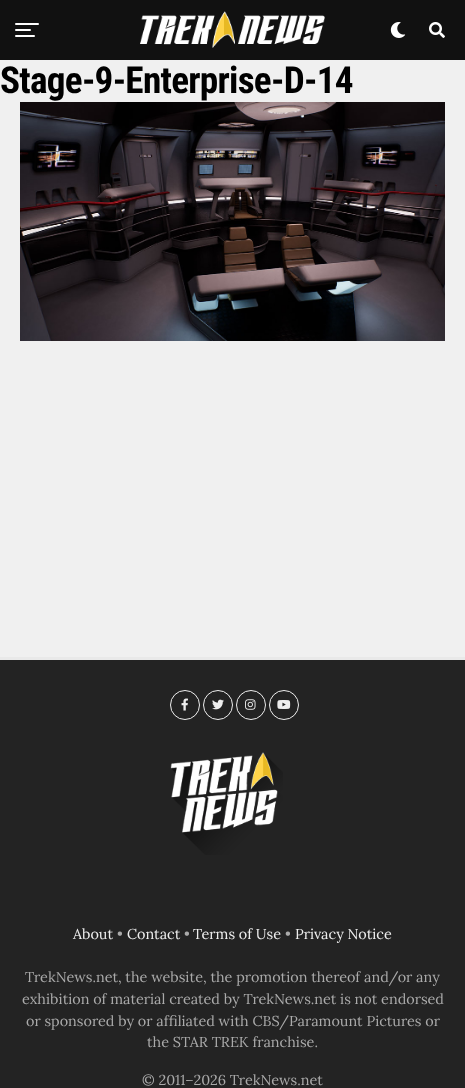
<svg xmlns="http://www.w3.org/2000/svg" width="465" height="1088">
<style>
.a{font:bold 37.25px Roboto Condensed;letter-spacing:-0.75px;fill:#000}
.b{font:14.4px Lora;fill:#eee}
.c{font:14.4px Lora;fill:#aaa}
</style>
<rect width="100%" height="100%" fill="#f0f0f0"/>
<path fill="#111" d="M0 0h465v60H0z"/>
<rect fill="#fff" x="15" y="23" width="24" height="2" rx="1"/>
<rect fill="#fff" x="15" y="29" width="16" height="2" rx="1"/>
<rect fill="#fff" x="15" y="35" width="20" height="2" rx="1"/>
<image href="1.png" x="140" y="11" width="185" height="37"/>
<image href="2.png" x="390" y="22" width="16" height="16"/>
<image href="3.png" x="429" y="22" width="16" height="16"/>
<image href="4.png" x="20" y="102" width="425" height="239"/>
<path fill="#232323" d="M0 660h465v428H0z"/>
<path fill="#e9e9e9" d="M0 657h465v3H0z"/>
<circle fill="none" stroke="#eee" cx="185" cy="705" r="14.5"/>
<image href="5.png" x="181" y="698" width="7" height="13"/>
<circle fill="none" stroke="#eee" cx="218" cy="705" r="14.5"/>
<image href="6.png" x="212" y="699" width="12" height="11"/>
<circle fill="none" stroke="#eee" cx="251" cy="705" r="14.5"/>
<image href="7.png" x="245" y="699" width="11" height="11"/>
<circle fill="none" stroke="#eee" cx="284" cy="705" r="14.5"/>
<image href="8.png" x="277" y="700" width="14" height="9"/>
<image href="9.png" x="170" y="752" width="113" height="103"/>
<text class="a" x="0" y="93">Stage-9-Enterprise-D-14</text>
<text class="b" x="73" y="939">About</text>
<text class="c" x="117" y="939">•</text>
<text class="b" x="127" y="939">Contact</text>
<text class="c" x="184" y="939">•</text>
<text class="b" x="193" y="939">Terms of Use</text>
<text class="c" x="285" y="939">•</text>
<text class="b" x="295" y="939">Privacy Notice</text>
<text class="c" x="25" y="982">TrekNews.net, the website, the promotion thereof and/or any</text>
<text class="c" x="22" y="1004">exhibition of material created by TrekNews.net is not endorsed</text>
<text class="c" x="26" y="1026">or sponsored by or affiliated with CBS/Paramount Pictures or</text>
<text class="c" x="147" y="1047">the STAR TREK franchise.</text>
<text class="c" x="142" y="1085">© 2011–2026 TrekNews.net</text>
</svg>
